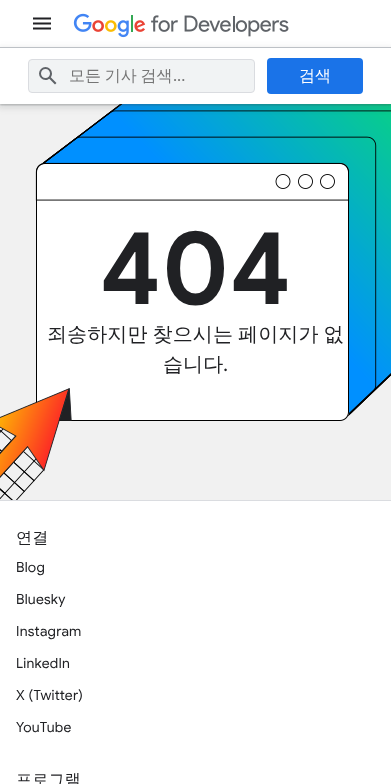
<svg xmlns="http://www.w3.org/2000/svg" width="391" height="784">
<style>
.a{font:500 16px WenQuanYi Zen Hei;fill:#757575}
.b{font:16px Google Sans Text;fill:#757575}
.c{font:500 16px WenQuanYi Zen Hei;fill:#fff}
.d{font:bold 100px Google Sans Text;letter-spacing:0.1px;fill:#202124}
.e{font:500 20px WenQuanYi Zen Hei;letter-spacing:0.1px;fill:#202124}
.f{font:20px Google Sans Text;letter-spacing:0.1px;fill:#202124}
.g{font:500 16px WenQuanYi Zen Hei;letter-spacing:0.25px;fill:#202124}
.h{font:14px Google Sans;letter-spacing:0.25px;fill:#202124}
</style>
<defs>
<clipPath id="clip1"><path d="M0 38h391v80h-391zm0 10h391v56h-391z" clip-rule="evenodd"/></clipPath>
<clipPath id="clip2"><path d="M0 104h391v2H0z"/></clipPath>
</defs>
<rect width="100%" height="100%" fill="#fff"/>
<image href="4.png" x="0" y="104" width="391" height="396"/>
<g clip-path="url(#clip1)">
<path fill="#3c404326" filter="blur(3px)" d="M-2 48h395v60H-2z"/>
</g>
<g clip-path="url(#clip2)">
<path fill="#3c40434d" filter="blur(1px)" d="M0 49h391v56H0z"/>
</g>
<path fill="#bdc1c6" d="M0 47h391v1H0z"/>
<image href="1.png" x="33" y="17" width="18" height="13"/>
<image href="2.png" x="73" y="13" width="216" height="25"/>
<rect fill="#f1f3f4" stroke="#dadce0" x="28.5" y="59.5" width="226" height="33" rx="3.5"/>
<image href="3.png" x="39" y="67" width="18" height="18"/>
<rect fill="#1a73e8" x="267" y="58" width="96" height="36" rx="4"/>
<path fill="#dadce0" d="M0 500h391v1H0z"/>
<text class="a" x="69" y="81" word-spacing="-1">모든 기사 검색</text>
<text class="b" x="173" y="81">...</text>
<text class="c" x="299" y="81">검색</text>
<text class="d" x="99" y="304">404</text>
<text class="e" x="47" y="341" word-spacing="-1">죄송하지만 찾으시는 페이지가 없</text>
<text class="e" x="163" y="371">습니다</text>
<text class="f" x="223" y="371">.</text>
<text class="g" x="16" y="543">연결</text>
<text class="h" x="16" y="572">Blog</text>
<text class="h" x="16" y="604">Bluesky</text>
<text class="h" x="16" y="636">Instagram</text>
<text class="h" x="16" y="668">LinkedIn</text>
<text class="h" x="16" y="700">X (Twitter)</text>
<text class="h" x="16" y="732">YouTube</text>
<text class="g" x="16" y="785">프로그램</text>
</svg>
